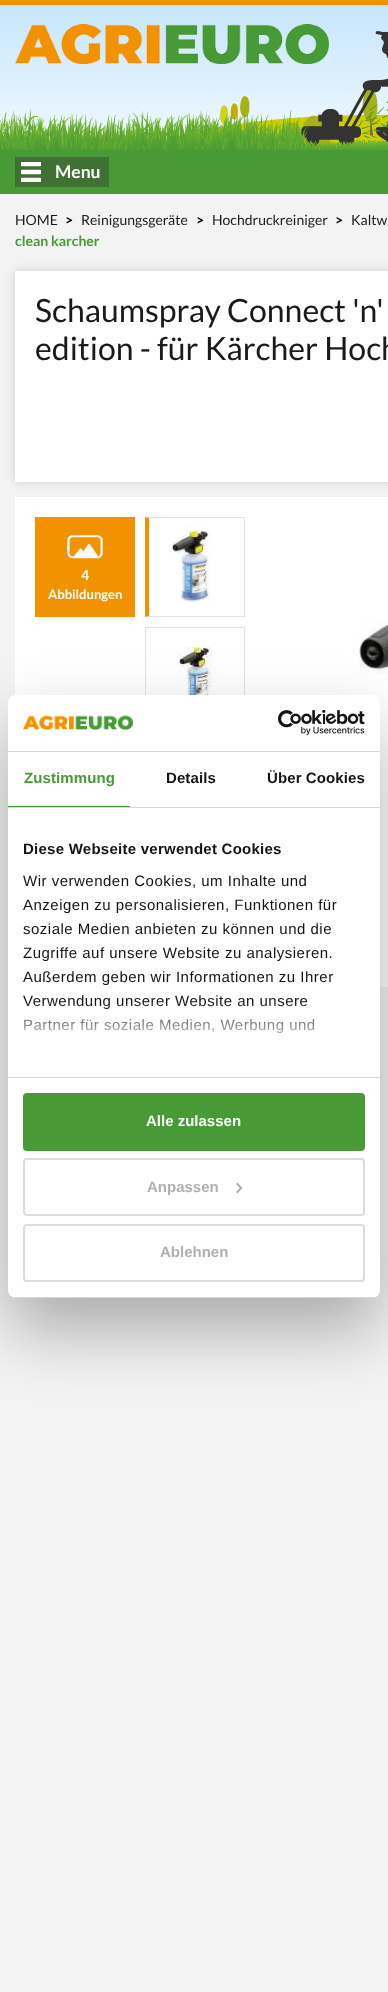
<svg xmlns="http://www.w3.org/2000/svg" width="388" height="1992">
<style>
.a{font:bold 17.5px Lato;fill:#fff}
.b{font:14px Lato;fill:#1a1a1a}
.c{font:bold 14px Lato;fill:#000}
.d{font:bold 14px Lato;fill:#479a36}
.e{font:32px Lato;fill:#1a1a1a}
.f{font:bold 14px Lato;fill:#fff}
.g{font:bold 13px Lato;fill:#fff}
.h{font:bold 15px Liberation Sans;letter-spacing:0.1px;fill:#479a36}
.i{font:bold 15px Liberation Sans;letter-spacing:0.1px;fill:#141414}
.j{font:bold 15px Liberation Sans;letter-spacing:0.25px;fill:#141414}
.k{font:15px Liberation Sans;letter-spacing:0.5px;fill:#141414}
.l{font:bold 15px Liberation Sans;fill:#fff}
.m{font:bold 15px Liberation Sans;fill:#b0b0b0}
</style>
<defs>
<linearGradient id="g1" gradientUnits="userSpaceOnUse" x1="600" y1="194" x2="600" y2="0"><stop offset="0" stop-color="#fff"/><stop offset="1" stop-color="#c5e5fc"/></linearGradient>
<clipPath id="clip1"><rect x="8" y="695" width="372" height="603" rx="8"/></clipPath>
<linearGradient id="g2" gradientUnits="userSpaceOnUse" x1="188" y1="1077" x2="188" y2="1002"><stop offset="0" stop-color="#fff"/><stop offset="0.5" stop-color="#fff" stop-opacity="0.8"/><stop offset="1" stop-color="#fff" stop-opacity="0"/></linearGradient>
</defs>
<rect width="100%" height="100%" fill="#f3f3f3"/>
<path fill="url(#g1)" d="M0 5h388v142H0z"/>
<path fill="#f39200" d="M0 0h388v5H0z"/>
<image href="3.png" x="152" y="90" width="236" height="60"/>
<image href="1.png" x="0" y="31" width="388" height="119"/>
<image href="2.png" x="0" y="110" width="27" height="40"/>
<image href="4.png" x="15" y="24" width="314" height="40"/>
<path fill="#479a36" d="M0 150h388v44H0z"/>
<path fill="#3f7134" d="M15 157h94v30H15z"/>
<image href="5.png" x="21" y="162" width="20" height="20"/>
<path fill="#00000026" filter="blur(5px)" d="M15 271h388v211H15z"/>
<path fill="#fff" d="M15 271h373v211H15z"/>
<path fill="#fff" d="M15 497h373v490H15z"/>
<path fill="#f39200" d="M35 517h100v100H35z"/>
<image href="6.png" x="67" y="535" width="36" height="24"/>
<path fill="#e2e2e2" d="M145 517h100l-1 1h-95z"/>
<path fill="#e2e2e2" d="M244 517h1v100H244z"/>
<path fill="#e2e2e2" d="M245 617h-100l4-1h95z"/>
<path fill="#f39200" d="M145 617v-100l4 1v98z"/>
<image href="7.png" x="172" y="526" width="38" height="77"/>
<path fill="none" stroke="#e2e2e2" d="M145.5 627.5h99v99H145.5z"/>
<image href="8.png" x="179" y="647" width="40" height="48"/>
<image href="9.png" x="359" y="621" width="29" height="53"/>
<rect fill="#0000004d" filter="blur(34px)" x="8" y="727" width="372" height="603" rx="8"/>
<rect fill="#fff" x="8" y="695" width="372" height="603" rx="8"/>
<path fill="#d6d6d6" d="M8 751h372v1H8z"/>
<image href="10.png" x="23" y="715" width="110" height="15"/>
<image href="11.png" x="278" y="710" width="87" height="26"/>
<path fill="#d6d6d6" d="M8 807h372v1H8z"/>
<path fill="#479a36" d="M8 806h122v1H8z"/>
<path fill="#d6d6d6" d="M8 1077h372v1H8z"/>
<g clip-path="url(#clip1)">
<path fill="#d6d6d6" d="M8 1297h372v1H8z"/>
</g>
<rect fill="#479a36" stroke="#479a36" stroke-width="2" x="24" y="1094" width="340" height="56" rx="3"/>
<rect fill="none" stroke="#dcdcdc" stroke-width="2" x="24" y="1159" width="340" height="56" rx="3"/>
<path fill="#b0b0b0" d="M237.5 1182.5l5 5.5l-1.5 1.5l-5-5.5z"/>
<path fill="#b0b0b0" d="M241 1186.5l1.5 1.5l-5 5.5l-1.5-1.5z"/>
<rect fill="none" stroke="#dcdcdc" stroke-width="2" x="24" y="1225" width="340" height="56" rx="3"/>
<text class="a" x="55" y="178">Menu</text>
<text class="b" x="15" y="225">HOME</text>
<text class="c" x="65" y="225">&gt;</text>
<text class="b" x="81" y="225">Reinigungsgeräte</text>
<text class="c" x="196" y="225">&gt;</text>
<text class="b" x="212" y="225">Hochdruckreiniger</text>
<text class="c" x="335" y="225">&gt;</text>
<text class="b" x="351" y="225">Kaltw</text>
<text class="d" x="15" y="246">clean karcher</text>
<text class="e" x="35" y="322">Schaumspray Connect 'n'</text>
<text class="e" x="35" y="360">edition - für Kärcher Hoch</text>
<text class="f" x="81" y="580">4</text>
<text class="g" x="48" y="599">Abbildungen</text>
<text class="h" x="24" y="783">Zustimmung</text>
<text class="i" x="166" y="783">Details</text>
<text class="i" x="267" y="783">Über Cookies</text>
<text class="j" x="23" y="854">Diese Webseite verwendet Cookies</text>
<text class="k" x="23" y="886">Wir verwenden Cookies, um Inhalte und</text>
<text class="k" x="23" y="910">Anzeigen zu personalisieren, Funktionen für</text>
<text class="k" x="23" y="934">soziale Medien anbieten zu können und die</text>
<text class="k" x="23" y="958">Zugriffe auf unsere Website zu analysieren.</text>
<text class="k" x="23" y="982">Außerdem geben wir Informationen zu Ihrer</text>
<text class="k" x="23" y="1006">Verwendung unserer Website an unsere</text>
<text class="k" x="23" y="1030">Partner für soziale Medien, Werbung und</text>
<path fill="url(#g2)" d="M24 1003h291v31H24z"/>
<text class="l" x="146" y="1126">Alle zulassen</text>
<text class="m" x="147" y="1192">Anpassen</text>
<text class="m" x="160" y="1257">Ablehnen</text>
</svg>
